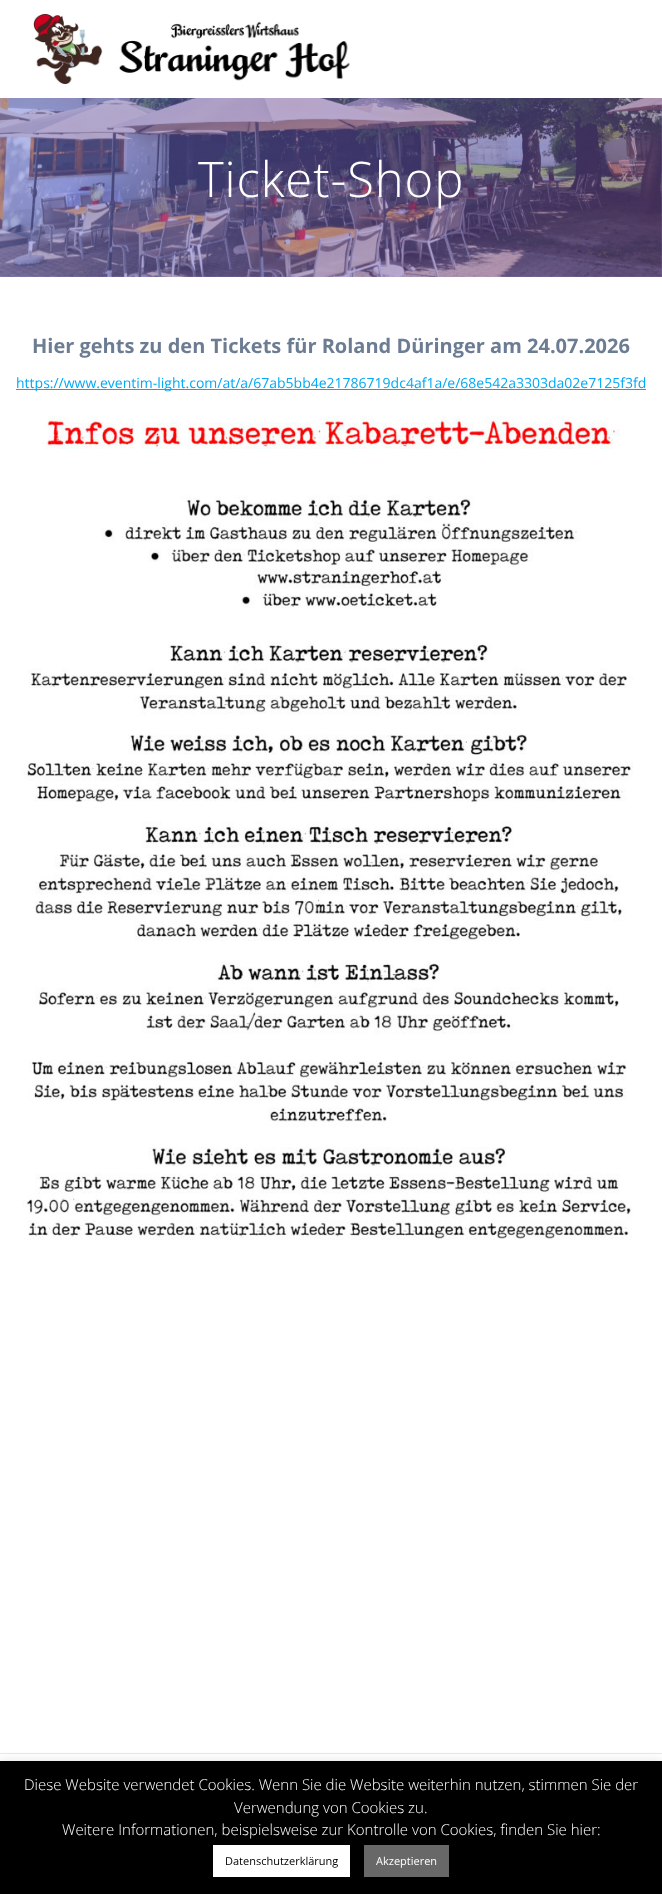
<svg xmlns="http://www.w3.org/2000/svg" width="662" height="1894">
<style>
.a{font:300 49px Open Sans;letter-spacing:0.9px;fill:#fff}
.b{font:bold 20px Open Sans;fill:#6b7c93}
.c{font:14px Open Sans;fill:#03a9f4}
.d{font:300 15px Open Sans;fill:#fff}
.e{font:11px Open Sans;fill:#000}
.f{font:11px Open Sans;fill:#fff}
</style>
<defs>
<linearGradient id="g1" gradientUnits="userSpaceOnUse" x1="96" y1="-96" x2="566" y2="373"><stop offset="0" stop-color="#667eea" stop-opacity="0.5"/><stop offset="1" stop-color="#764ba2" stop-opacity="0.5"/></linearGradient>
</defs>
<rect width="100%" height="100%" fill="#fff"/>
<image href="1.png" x="33" y="14" width="317" height="70"/>
<image href="2.png" x="0" y="98" width="662" height="179"/>
<path fill="url(#g1)" d="M0 98h662v179H0z"/>
<path fill="#03a9f4" d="M16 389h630v1H16z"/>
<image href="3.png" x="22" y="416" width="611" height="824"/>
<path fill="#e8e8e8" d="M0 1753h662v1H0z"/>
<path fill="#acabab4d" filter="blur(5px)" d="M0 1760h662v133H0z"/>
<path fill="#000" d="M0 1761h662v133H0z"/>
<path fill="#fff" d="M213 1845h137v32H213z"/>
<path fill="#686868" d="M364 1845h85v32H364z"/>
<text class="a" x="198" y="197">Ticket-Shop</text>
<text class="b" x="32" y="353">Hier gehts zu den Tickets für Roland Düringer am 24.07.2026</text>
<text class="c" x="16" y="388">https://www.eventim-light.com/at/a/67ab5bb4e21786719dc4af1a/e/68e542a3303da02e7125f3fd</text>
<text class="d" x="24" y="1790">Diese Website verwendet Cookies. Wenn Sie die Website weiterhin nutzen, stimmen Sie der</text>
<text class="d" x="234" y="1813">Verwendung von Cookies zu.</text>
<text class="d" x="62" y="1835">Weitere Informationen, beispielsweise zur Kontrolle von Cookies, finden Sie hier:</text>
<text class="e" x="225" y="1865">Datenschutzerklärung</text>
<text class="f" x="376" y="1865">Akzeptieren</text>
</svg>
